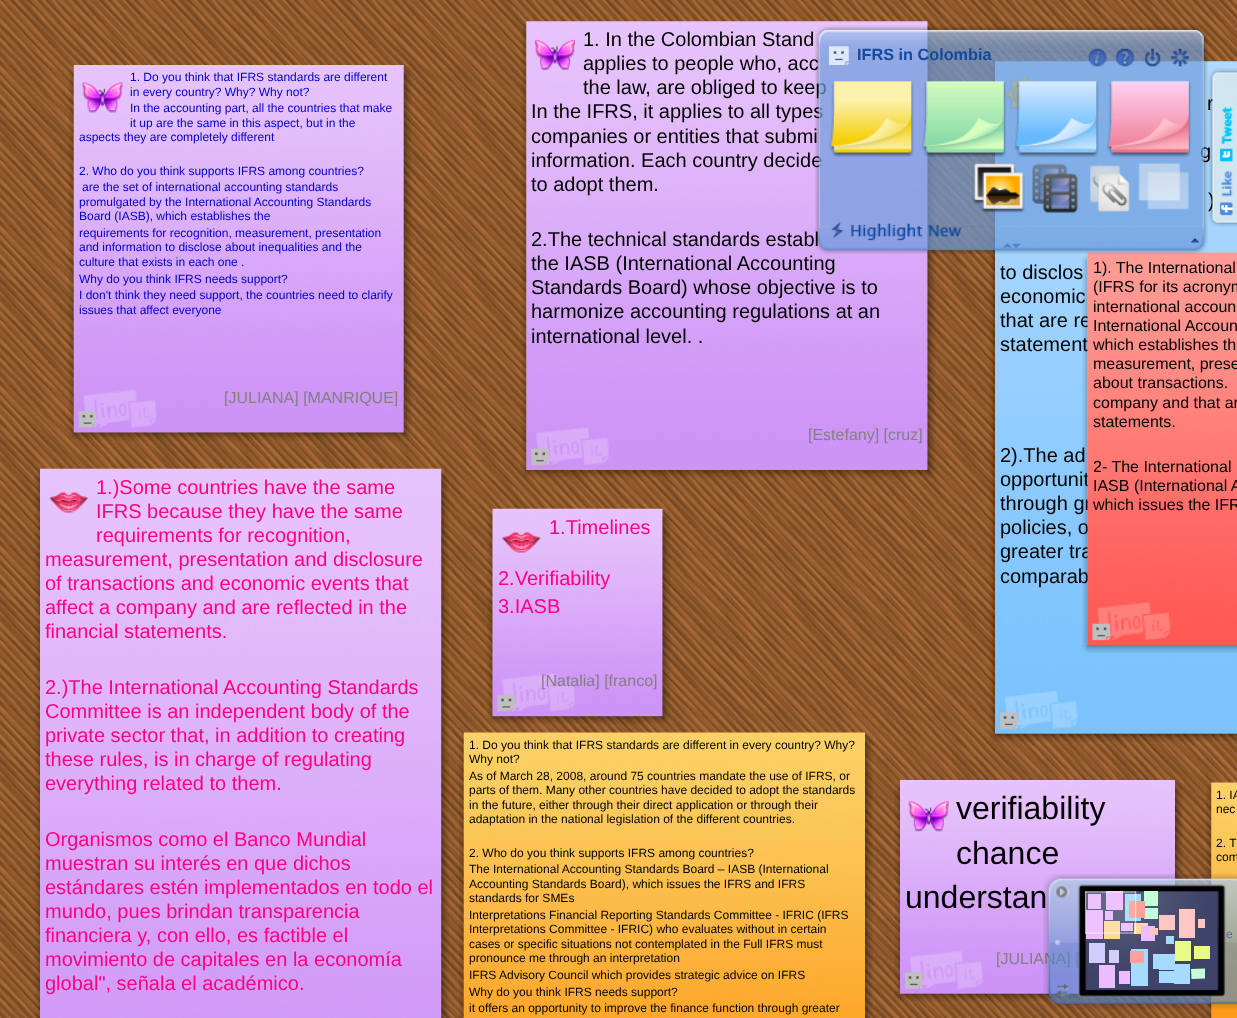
<svg xmlns="http://www.w3.org/2000/svg" width="1237" height="1018">
<style>
.a{font:12px Liberation Sans;fill:#00c}
.b{font:16px Liberation Sans;fill:#808080}
.c{font:20px Liberation Sans;fill:#000}
.d{font:16px Liberation Sans;fill:#000}
.e{font:20px Liberation Sans;fill:#fe007f}
.f{font:12px Liberation Sans;fill:#000}
.g{font:32px Liberation Sans;fill:#000}
.h{font:bold 16.25px Liberation Sans;fill:#1349a0}
</style>
<defs>
<clipPath id="clip1"><path d="M79 388h320v18H79z"/></clipPath>
</defs>
<rect width="100%" height="100%" fill="#fff"/>
<image href="1.png" x="0" y="0" width="1237" height="1018"/>
<image href="2.png" x="68" y="68" width="6" height="7"/>
<image href="5.png" x="68" y="75" width="6" height="358"/>
<image href="7.png" x="68" y="432" width="6" height="8"/>
<image href="3.png" x="73" y="65" width="331" height="368"/>
<image href="4.png" x="403" y="67" width="9" height="8"/>
<image href="6.png" x="403" y="75" width="9" height="358"/>
<image href="9.png" x="403" y="432" width="9" height="9"/>
<image href="8.png" x="73" y="432" width="331" height="9"/>
<image href="10.png" x="82" y="82" width="41" height="31"/>
<image href="12.png" x="83" y="390" width="74" height="38"/>
<image href="11.png" x="78" y="411" width="19" height="17"/>
<image href="13.png" x="521" y="24" width="6" height="8"/>
<image href="16.png" x="521" y="31" width="6" height="439"/>
<image href="14.png" x="526" y="21" width="402" height="449"/>
<image href="15.png" x="927" y="23" width="8" height="9"/>
<image href="17.png" x="927" y="31" width="9" height="439"/>
<image href="18.png" x="521" y="470" width="6" height="8"/>
<image href="20.png" x="927" y="470" width="9" height="8"/>
<image href="19.png" x="526" y="470" width="402" height="8"/>
<image href="21.png" x="535" y="39" width="40" height="32"/>
<image href="23.png" x="536" y="427" width="73" height="38"/>
<image href="22.png" x="531" y="448" width="18" height="18"/>
<image href="24.png" x="989" y="64" width="6" height="8"/>
<image href="32.png" x="992" y="235" width="3" height="7"/>
<image href="33.png" x="992" y="241" width="3" height="487"/>
<image href="34.png" x="992" y="727" width="6" height="8"/>
<image href="35.png" x="997" y="733" width="240" height="3"/>
<image href="25.png" x="995" y="61" width="242" height="673"/>
<image href="26.png" x="989" y="71" width="6" height="663"/>
<image href="27.png" x="989" y="733" width="6" height="9"/>
<image href="28.png" x="995" y="733" width="242" height="9"/>
<image href="29.png" x="1004" y="75" width="35" height="37"/>
<image href="31.png" x="1005" y="691" width="73" height="38"/>
<image href="30.png" x="1000" y="712" width="18" height="17"/>
<image href="36.png" x="1082" y="255" width="6" height="8"/>
<image href="39.png" x="1081" y="645" width="7" height="8"/>
<image href="40.png" x="1087" y="645" width="150" height="8"/>
<image href="43.png" x="35" y="472" width="5" height="7"/>
<image href="44.png" x="40" y="468" width="402" height="550"/>
<image href="45.png" x="441" y="471" width="8" height="8"/>
<image href="46.png" x="34" y="478" width="6" height="540"/>
<image href="47.png" x="441" y="478" width="8" height="540"/>
<image href="48.png" x="49" y="492" width="39" height="21"/>
<image href="49.png" x="487" y="511" width="6" height="8"/>
<image href="52.png" x="487" y="518" width="6" height="199"/>
<image href="54.png" x="487" y="716" width="6" height="8"/>
<image href="50.png" x="492" y="508" width="171" height="209"/>
<image href="51.png" x="662" y="511" width="8" height="8"/>
<image href="53.png" x="662" y="518" width="9" height="199"/>
<image href="56.png" x="662" y="716" width="8" height="8"/>
<image href="55.png" x="492" y="716" width="171" height="8"/>
<image href="57.png" x="502" y="532" width="39" height="21"/>
<image href="59.png" x="502" y="673" width="73" height="39"/>
<image href="58.png" x="497" y="695" width="19" height="17"/>
<image href="60.png" x="458" y="735" width="6" height="8"/>
<image href="63.png" x="458" y="742" width="6" height="276"/>
<image href="61.png" x="463" y="732" width="402" height="286"/>
<image href="62.png" x="865" y="734" width="8" height="9"/>
<image href="64.png" x="865" y="742" width="8" height="276"/>
<image href="65.png" x="895" y="783" width="5" height="7"/>
<image href="66.png" x="900" y="780" width="275" height="214"/>
<image href="67.png" x="1175" y="782" width="8" height="8"/>
<image href="68.png" x="894" y="790" width="6" height="204"/>
<image href="69.png" x="1175" y="790" width="8" height="97"/>
<image href="70.png" x="894" y="993" width="6" height="9"/>
<image href="71.png" x="900" y="993" width="275" height="9"/>
<image href="72.png" x="1175" y="994" width="8" height="8"/>
<image href="73.png" x="908" y="801" width="41" height="31"/>
<image href="75.png" x="910" y="951" width="73" height="38"/>
<image href="74.png" x="905" y="972" width="18" height="17"/>
<image href="76.png" x="1206" y="785" width="6" height="8"/>
<image href="78.png" x="1206" y="792" width="6" height="226"/>
<image href="77.png" x="1211" y="782" width="26" height="236"/>
<image href="79.png" x="815" y="26" width="393" height="26"/>
<text class="a" x="130" y="81">1. Do you think that IFRS standards are different</text>
<text class="a" x="130" y="96">in every country? Why? Why not?</text>
<text class="a" x="130" y="112">In the accounting part, all the countries that make</text>
<text class="a" x="130" y="127">it up are the same in this aspect, but in the</text>
<text class="a" x="79" y="141">aspects they are completely different</text>
<text class="a" x="79" y="175">2. Who do you think supports IFRS among countries?</text>
<text class="a" x="82" y="191">are the set of international accounting standards</text>
<text class="a" x="79" y="206">promulgated by the International Accounting Standards</text>
<text class="a" x="79" y="220">Board (IASB), which establishes the</text>
<text class="a" x="79" y="237">requirements for recognition, measurement, presentation</text>
<text class="a" x="79" y="251">and information to disclose about inequalities and the</text>
<text class="a" x="79" y="266">culture that exists in each one .</text>
<text class="a" x="79" y="283">Why do you think IFRS needs support?</text>
<text class="a" x="79" y="299">I don't think they need support, the countries need to clarify</text>
<text class="a" x="79" y="314">issues that affect everyone</text>
<g clip-path="url(#clip1)">
<text class="b" x="224" y="403">[JULIANA] [MANRIQUE]</text>
</g>
<text class="c" x="583" y="46">1. In the Colombian Stand</text>
<text class="c" x="583" y="70">applies to people who, acc</text>
<text class="c" x="583" y="94">the law, are obliged to keep</text>
<text class="c" x="531" y="118">In the IFRS, it applies to all types</text>
<text class="c" x="531" y="143">companies or entities that submi</text>
<text class="c" x="531" y="167">information. Each country decide</text>
<text class="c" x="531" y="191">to adopt them.</text>
<text class="c" x="531" y="246">2.The technical standards establ</text>
<text class="c" x="531" y="270">the IASB (International Accounting</text>
<text class="c" x="531" y="294">Standards Board) whose objective is to</text>
<text class="c" x="531" y="318">harmonize accounting regulations at an</text>
<text class="c" x="531" y="343">international level. .</text>
<text class="b" x="808" y="440">[Estefany] [cruz]</text>
<text class="c" x="1207" y="110">r</text>
<text class="c" x="1200" y="158">g</text>
<text class="c" x="1208" y="207">)</text>
<text class="c" x="1000" y="279">to disclos</text>
<text class="c" x="1000" y="303">economic</text>
<text class="c" x="1000" y="327">that are re</text>
<text class="c" x="1000" y="351">statement</text>
<text class="c" x="1000" y="462">2).The ad</text>
<text class="c" x="1000" y="486">opportunit</text>
<text class="c" x="1000" y="510">through gr</text>
<text class="c" x="1000" y="534">policies, o</text>
<text class="c" x="1000" y="558">greater tra</text>
<text class="c" x="1000" y="583">comparab</text>
<image href="38.png" x="1082" y="262" width="6" height="383"/>
<image href="37.png" x="1087" y="252" width="150" height="393"/>
<text class="d" x="1093" y="273">1). The International</text>
<text class="d" x="1093" y="292">(IFRS for its acronym</text>
<text class="d" x="1093" y="312">international accoun</text>
<text class="d" x="1093" y="331">International Accoun</text>
<text class="d" x="1093" y="350">which establishes th</text>
<text class="d" x="1093" y="369">measurement, prese</text>
<text class="d" x="1093" y="388">about transactions.</text>
<text class="d" x="1093" y="408">company and that ar</text>
<text class="d" x="1093" y="427">statements.</text>
<text class="d" x="1093" y="472">2- The International</text>
<text class="d" x="1093" y="491">IASB (International A</text>
<text class="d" x="1093" y="510">which issues the IFR</text>
<image href="42.png" x="1097" y="602" width="74" height="38"/>
<image href="41.png" x="1092" y="623" width="19" height="18"/>
<text class="e" x="96" y="494">1.)Some countries have the same</text>
<text class="e" x="96" y="518">IFRS because they have the same</text>
<text class="e" x="96" y="542">requirements for recognition,</text>
<text class="e" x="45" y="566">measurement, presentation and disclosure</text>
<text class="e" x="45" y="590">of transactions and economic events that</text>
<text class="e" x="45" y="614">affect a company and are reflected in the</text>
<text class="e" x="45" y="638">financial statements.</text>
<text class="e" x="45" y="694">2.)The International Accounting Standards</text>
<text class="e" x="45" y="718">Committee is an independent body of the</text>
<text class="e" x="45" y="742">private sector that, in addition to creating</text>
<text class="e" x="45" y="766">these rules, is in charge of regulating</text>
<text class="e" x="45" y="790">everything related to them.</text>
<text class="e" x="45" y="846">Organismos como el Banco Mundial</text>
<text class="e" x="45" y="870">muestran su interés en que dichos</text>
<text class="e" x="45" y="894">estándares estén implementados en todo el</text>
<text class="e" x="45" y="918">mundo, pues brindan transparencia</text>
<text class="e" x="45" y="942">financiera y, con ello, es factible el</text>
<text class="e" x="45" y="966">movimiento de capitales en la economía</text>
<text class="e" x="45" y="990">global", señala el académico.</text>
<text class="e" x="549" y="534">1.Timelines</text>
<text class="e" x="498" y="585">2.Verifiability</text>
<text class="e" x="498" y="613">3.IASB</text>
<text class="b" x="541" y="686">[Natalia] [franco]</text>
<text class="f" x="469" y="749">1. Do you think that IFRS standards are different in every country? Why?</text>
<text class="f" x="469" y="763">Why not?</text>
<text class="f" x="469" y="780">As of March 28, 2008, around 75 countries mandate the use of IFRS, or</text>
<text class="f" x="469" y="794">parts of them. Many other countries have decided to adopt the standards</text>
<text class="f" x="469" y="809">in the future, either through their direct application or through their</text>
<text class="f" x="469" y="823">adaptation in the national legislation of the different countries.</text>
<text class="f" x="469" y="857">2. Who do you think supports IFRS among countries?</text>
<text class="f" x="469" y="873">The International Accounting Standards Board – IASB (International</text>
<text class="f" x="469" y="888">Accounting Standards Board), which issues the IFRS and IFRS</text>
<text class="f" x="469" y="902">standards for SMEs</text>
<text class="f" x="469" y="919">Interpretations Financial Reporting Standards Committee - IFRIC (IFRS</text>
<text class="f" x="469" y="933">Interpretations Committee - IFRIC) who evaluates without in certain</text>
<text class="f" x="469" y="948">cases or specific situations not contemplated in the Full IFRS must</text>
<text class="f" x="469" y="962">pronounce me through an interpretation</text>
<text class="f" x="469" y="979">IFRS Advisory Council which provides strategic advice on IFRS</text>
<text class="f" x="469" y="996">Why do you think IFRS needs support?</text>
<text class="f" x="469" y="1012">it offers an opportunity to improve the finance function through greater</text>
<text class="g" x="956" y="819">verifiability</text>
<text class="g" x="956" y="864">chance</text>
<text class="g" x="905" y="908">understan</text>
<text class="b" x="996" y="964">[JULIANA] [</text>
<text class="f" x="1216" y="799">1. IA</text>
<text class="f" x="1216" y="813">nec</text>
<text class="f" x="1216" y="847">2. T</text>
<text class="f" x="1216" y="861">com</text>
<text class="f" x="1226" y="938">e</text>
<image href="80.png" x="815" y="51" width="393" height="176"/>
<image href="81.png" x="815" y="226" width="393" height="28"/>
<image href="82.png" x="828" y="46" width="21" height="19"/>
<text class="h" x="857" y="60">IFRS in Colombia</text>
<image href="83.png" x="1088" y="48" width="19" height="19"/>
<image href="84.png" x="1116" y="48" width="18" height="19"/>
<image href="85.png" x="1144" y="48" width="17" height="19"/>
<image href="86.png" x="1171" y="48" width="18" height="19"/>
<image href="87.png" x="829" y="81" width="85" height="77"/>
<image href="88.png" x="921" y="81" width="85" height="77"/>
<image href="89.png" x="1014" y="81" width="85" height="77"/>
<image href="90.png" x="1106" y="81" width="85" height="77"/>
<image href="91.png" x="972" y="163" width="53" height="50"/>
<image href="92.png" x="1032" y="163" width="46" height="50"/>
<image href="93.png" x="1089" y="165" width="41" height="47"/>
<image href="94.png" x="1138" y="162" width="51" height="48"/>
<image href="95.png" x="831" y="222" width="131" height="19"/>
<image href="96.png" x="1191" y="238" width="8" height="5"/>
<image href="97.png" x="1003" y="243" width="18" height="5"/>
<image href="98.png" x="1208" y="68" width="29" height="159"/>
<image href="102.png" x="1073" y="874" width="164" height="136"/>
<image href="99.png" x="1043" y="874" width="31" height="136"/>
<image href="101.png" x="1056" y="983" width="13" height="14"/>
<image href="100.png" x="1056" y="886" width="13" height="12"/>
<image href="103.png" x="1077" y="883" width="149" height="115"/>
<path fill="#edbbff" d="M1088 894h13v15H1088z"/>
<path fill="#edbbff" d="M1106 891h17v19H1106z"/>
<path fill="#a6dbff" d="M1125 894h16v27H1125z"/>
<path fill="#c4ffd8" d="M1144 891h14v15H1144z"/>
<path fill="#edbbff" d="M1086 910h17v29H1086z"/>
<path fill="#edbbff" d="M1105 911h8v9H1105z"/>
<path fill="#c4ffd8" d="M1144 908h14v11H1144z"/>
<path fill="#ffa09b" d="M1129 901h16v17H1129z"/>
<path fill="#ffc7c4" d="M1159 915h16v15H1159z"/>
<path fill="#ffc7c4" d="M1179 909h16v29H1179z"/>
<path fill="#ffc7c4" d="M1198 919h7v9H1198z"/>
<path fill="#ffdb9b" d="M1104 921h16v18H1104z"/>
<path fill="#edbbff" d="M1121 923h12v8H1121z"/>
<path fill="#ffdb9b" d="M1134 923h14v11H1134z"/>
<path fill="#ffffff1a" d="M1085 891h52v43H1085z"/>
<image href="104.png" x="1085" y="891" width="2" height="43"/>
<image href="105.png" x="1085" y="891" width="51" height="2"/>
<image href="106.png" x="1135" y="891" width="2" height="43"/>
<image href="107.png" x="1085" y="932" width="51" height="2"/>
<path fill="#edbbff" d="M1141 926h14v15H1141z"/>
<path fill="#ffc7c4" d="M1150 928h8v7H1150z"/>
<path fill="#a6dbff" d="M1166 936h8v8H1166z"/>
<path fill="#d3cdfc" d="M1089 943h16v20H1089z"/>
<path fill="#d3cdfc" d="M1109 950h10v13H1109z"/>
<path fill="#a6dbff" d="M1131 949h17v37H1131z"/>
<path fill="#eafc86" d="M1175 941h16v20H1175z"/>
<path fill="#eafc86" d="M1194 946h16v13H1194z"/>
<path fill="#ffa09b" d="M1130 951h14v12H1130z"/>
<path fill="#a6dbff" d="M1153 954h6v15H1153z"/>
<path fill="#edbbff" d="M1099 965h16v23H1099z"/>
<path fill="#edbbff" d="M1119 971h11v13H1119z"/>
<path fill="#a6dbff" d="M1159 971h15v12H1159z"/>
<path fill="#a6dbff" d="M1174 964h16v20H1174z"/>
<path fill="#a6dbff" d="M1159 954h16v16H1159z"/>
<path fill="#c4ffd8" d="M1191 969l14-.5v10l-13.5 .5z"/>
</svg>
